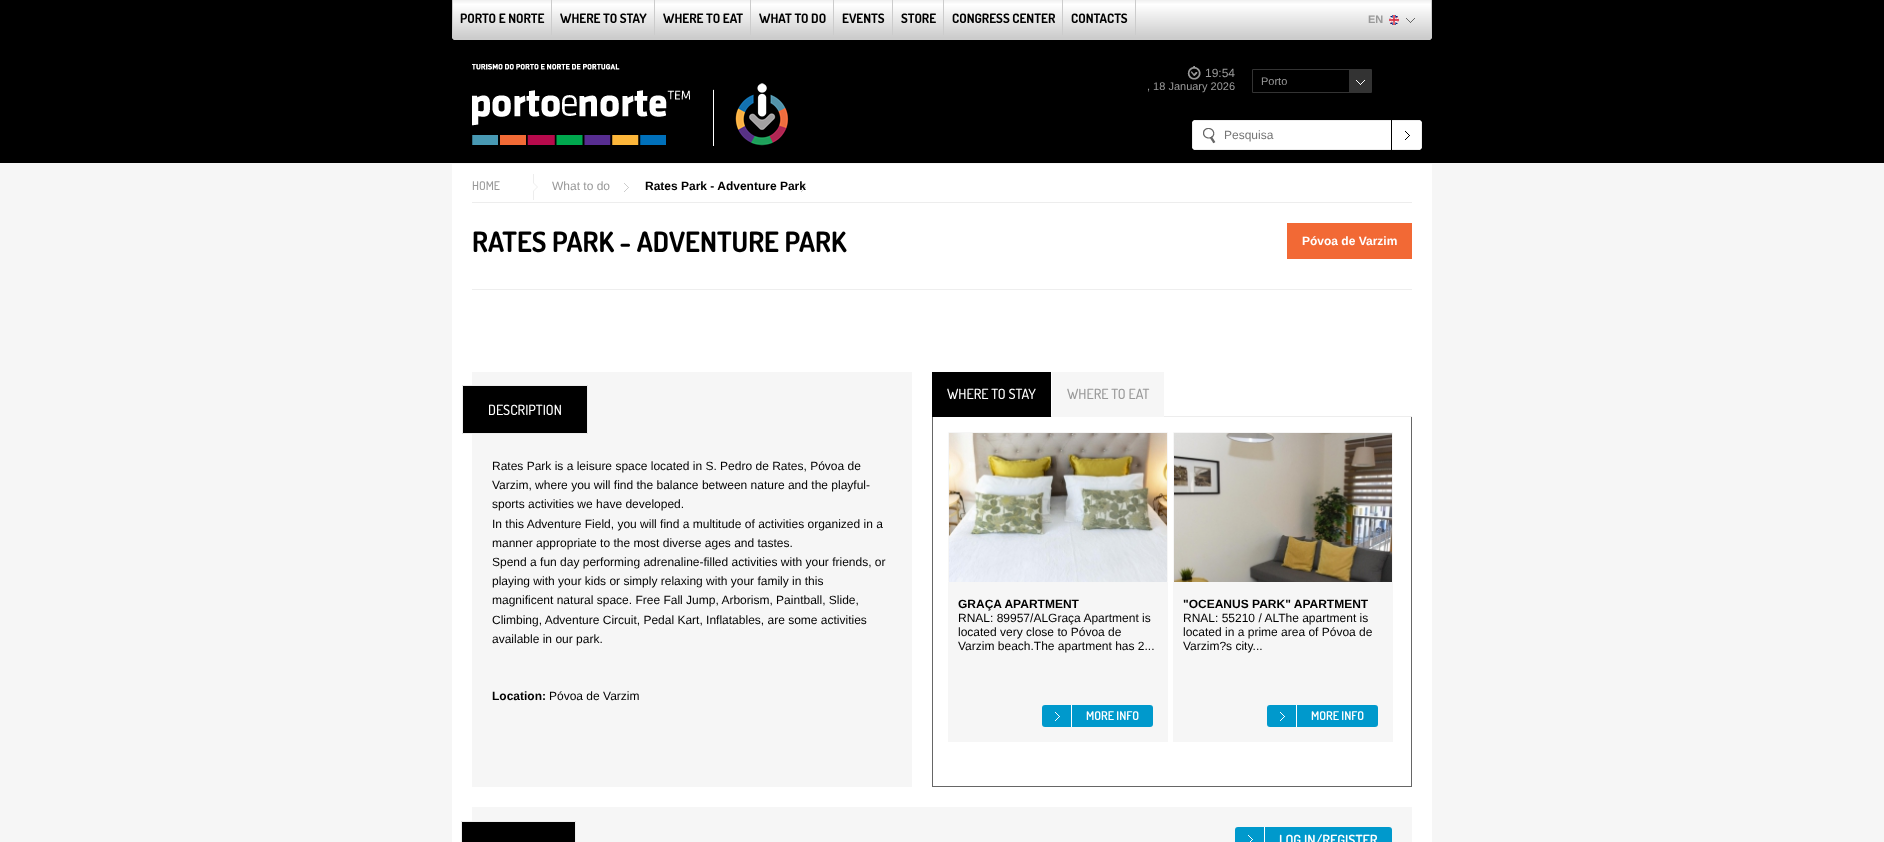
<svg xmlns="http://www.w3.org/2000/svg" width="1884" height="842">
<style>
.a{font:bold 13px Dosis;fill:#000}
.b{font:bold 11px Liberation Sans;fill:#999}
.c{font:12px Liberation Sans;fill:#999}
.d{font:11px Liberation Sans;fill:#999}
.e{font:12px Liberation Sans;fill:#757575}
.f{font:500 12px Dosis;fill:#999}
.g{font:bold 12px Liberation Sans;fill:#000}
.h{font:bold 28px Dosis;fill:#000}
.i{font:bold 12px Liberation Sans;fill:#fff}
.j{font:500 14px Dosis;fill:#fff}
.k{font:12px Liberation Sans;fill:#000}
.l{font:500 14px Dosis;fill:#999}
.m{font:600 12px Dosis;fill:#fff}
.n{font:600 14px Dosis;fill:#fff}
</style>
<rect width="100%" height="100%" fill="#f6f6f6"/>
<path fill="#000" d="M0 0h1884v163H0z"/>
<image href="1.png" x="452" y="0" width="980" height="40"/>
<path fill="#ccc" d="M551 0h1v35H551z"/>
<path fill="#ccc" d="M654 0h1v35H654z"/>
<path fill="#ccc" d="M750 0h1v35H750z"/>
<path fill="#ccc" d="M833 0h1v35H833z"/>
<path fill="#ccc" d="M892 0h1v35H892z"/>
<path fill="#ccc" d="M943 0h1v35H943z"/>
<path fill="#ccc" d="M1062 0h1v35H1062z"/>
<path fill="#ccc" d="M1135 0h1v35H1135z"/>
<image href="2.png" x="1389" y="15" width="10" height="10"/>
<image href="3.png" x="1406" y="18" width="9" height="5"/>
<image href="4.png" x="472" y="64" width="317" height="82"/>
<image href="5.png" x="1187" y="66" width="14" height="14"/>
<path fill="none" stroke="#333" d="M1252.5 69.5h119v23H1252.5z"/>
<path fill="#333" d="M1349 70h22v22H1349z"/>
<image href="6.png" x="1356" y="80" width="9" height="5"/>
<image href="7.png" x="1192" y="120" width="230" height="30"/>
<path fill="#fff" d="M452 164h980v678H452z"/>
<path fill="#ededed" d="M472 202h940v1H472z"/>
<image href="8.png" x="533" y="174" width="5" height="26"/>
<image href="9.png" x="624" y="183" width="5" height="9"/>
<image href="9.png" x="801" y="183" width="5" height="9"/>
<path fill="#f26935" d="M1287 223h125v36H1287z"/>
<path fill="#eee" d="M472 289h940v1H472z"/>
<path fill="#f6f6f6" d="M472 372h440v415H472z"/>
<path fill="#000" stroke="#ededed" d="M462.5 385.5h125v48H462.5z"/>
<path fill="#ededed" d="M1051 416h361v1H1051z"/>
<path fill="#000" d="M932 372h119v45H932z"/>
<path fill="#f6f6f6" d="M1052 372h112v45H1052z"/>
<path fill="#666" d="M1411 417h1v370H1411z"/>
<path fill="#666" d="M932 786h480v1H932z"/>
<path fill="#666" d="M932 417h1v370H932z"/>
<path fill="none" stroke="#f6f6f6" d="M948.5 432.5h219v149H948.5z"/>
<image href="10.png" x="949" y="433" width="218" height="149"/>
<path fill="#f6f6f6" d="M948 582h220v160H948z"/>
<rect fill="#09c" x="1042" y="705" width="111" height="22" rx="3"/>
<image href="11.png" x="1055" y="705" width="17" height="22"/>
<path fill="none" stroke="#f6f6f6" d="M1173.5 432.5h219v149H1173.5z"/>
<image href="12.png" x="1174" y="433" width="218" height="149"/>
<path fill="#f6f6f6" d="M1173 582h220v160H1173z"/>
<rect fill="#09c" x="1267" y="705" width="111" height="22" rx="3"/>
<image href="11.png" x="1280" y="705" width="17" height="22"/>
<path fill="#f6f6f6" d="M472 807h940v35H472z"/>
<path fill="#000" stroke="#ededed" d="M461.5 821.5h114v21H461.5z"/>
<rect fill="#09c" x="1235" y="827" width="157" height="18" rx="3"/>
<image href="13.png" x="1248" y="827" width="17" height="15"/>
<text class="a" x="460" y="23">PORTO E NORTE</text>
<text class="a" x="560" y="23">WHERE TO STAY</text>
<text class="a" x="663" y="23">WHERE TO EAT</text>
<text class="a" x="759" y="23">WHAT TO DO</text>
<text class="a" x="842" y="23">EVENTS</text>
<text class="a" x="901" y="23">STORE</text>
<text class="a" x="952" y="23">CONGRESS CENTER</text>
<text class="a" x="1071" y="23">CONTACTS</text>
<text class="b" x="1368" y="23">EN</text>
<text class="c" x="1205" y="77">19:54</text>
<text class="d" x="1147" y="90">, 18 January 2026</text>
<text class="d" x="1261" y="85">Porto</text>
<text class="e" x="1224" y="139">Pesquisa</text>
<text class="f" x="472" y="190">HOME</text>
<text class="c" x="552" y="190">What to do</text>
<text class="g" x="645" y="190">Rates Park - Adventure Park</text>
<text class="h" x="472" y="252">RATES PARK - ADVENTURE PARK</text>
<text class="i" x="1302" y="245">Póvoa de Varzim</text>
<text class="j" x="488" y="415">DESCRIPTION</text>
<text class="k" x="492" y="470">Rates Park is a leisure space located in S. Pedro de Rates, Póvoa de</text>
<text class="k" x="492" y="489">Varzim, where you will find the balance between nature and the playful-</text>
<text class="k" x="492" y="508">sports activities we have developed.</text>
<text class="k" x="492" y="528">In this Adventure Field, you will find a multitude of activities organized in a</text>
<text class="k" x="492" y="547">manner appropriate to the most diverse ages and tastes.</text>
<text class="k" x="492" y="566">Spend a fun day performing adrenaline-filled activities with your friends, or</text>
<text class="k" x="492" y="585">playing with your kids or simply relaxing with your family in this</text>
<text class="k" x="492" y="604">magnificent natural space. Free Fall Jump, Arborism, Paintball, Slide,</text>
<text class="k" x="492" y="624">Climbing, Adventure Circuit, Pedal Kart, Inflatables, are some activities</text>
<text class="k" x="492" y="643">available in our park.</text>
<text class="g" x="492" y="700">Location:</text>
<text class="k" x="549" y="700">Póvoa de Varzim</text>
<text class="j" x="947" y="399">WHERE TO STAY</text>
<text class="l" x="1067" y="399">WHERE TO EAT</text>
<text class="g" x="958" y="608">GRAÇA APARTMENT</text>
<text class="k" x="958" y="622">RNAL: 89957/ALGraça Apartment is</text>
<text class="k" x="958" y="636">located very close to Póvoa de</text>
<text class="k" x="958" y="650">Varzim beach.The apartment has 2...</text>
<text class="m" x="1086" y="720">MORE INFO</text>
<text class="g" x="1183" y="608">"OCEANUS PARK" APARTMENT</text>
<text class="k" x="1183" y="622">RNAL: 55210 / ALThe apartment is</text>
<text class="k" x="1183" y="636">located in a prime area of Póvoa de</text>
<text class="k" x="1183" y="650">Varzim?s city...</text>
<text class="m" x="1311" y="720">MORE INFO</text>
<text class="n" x="1279" y="845">LOG IN/REGISTER</text>
</svg>
